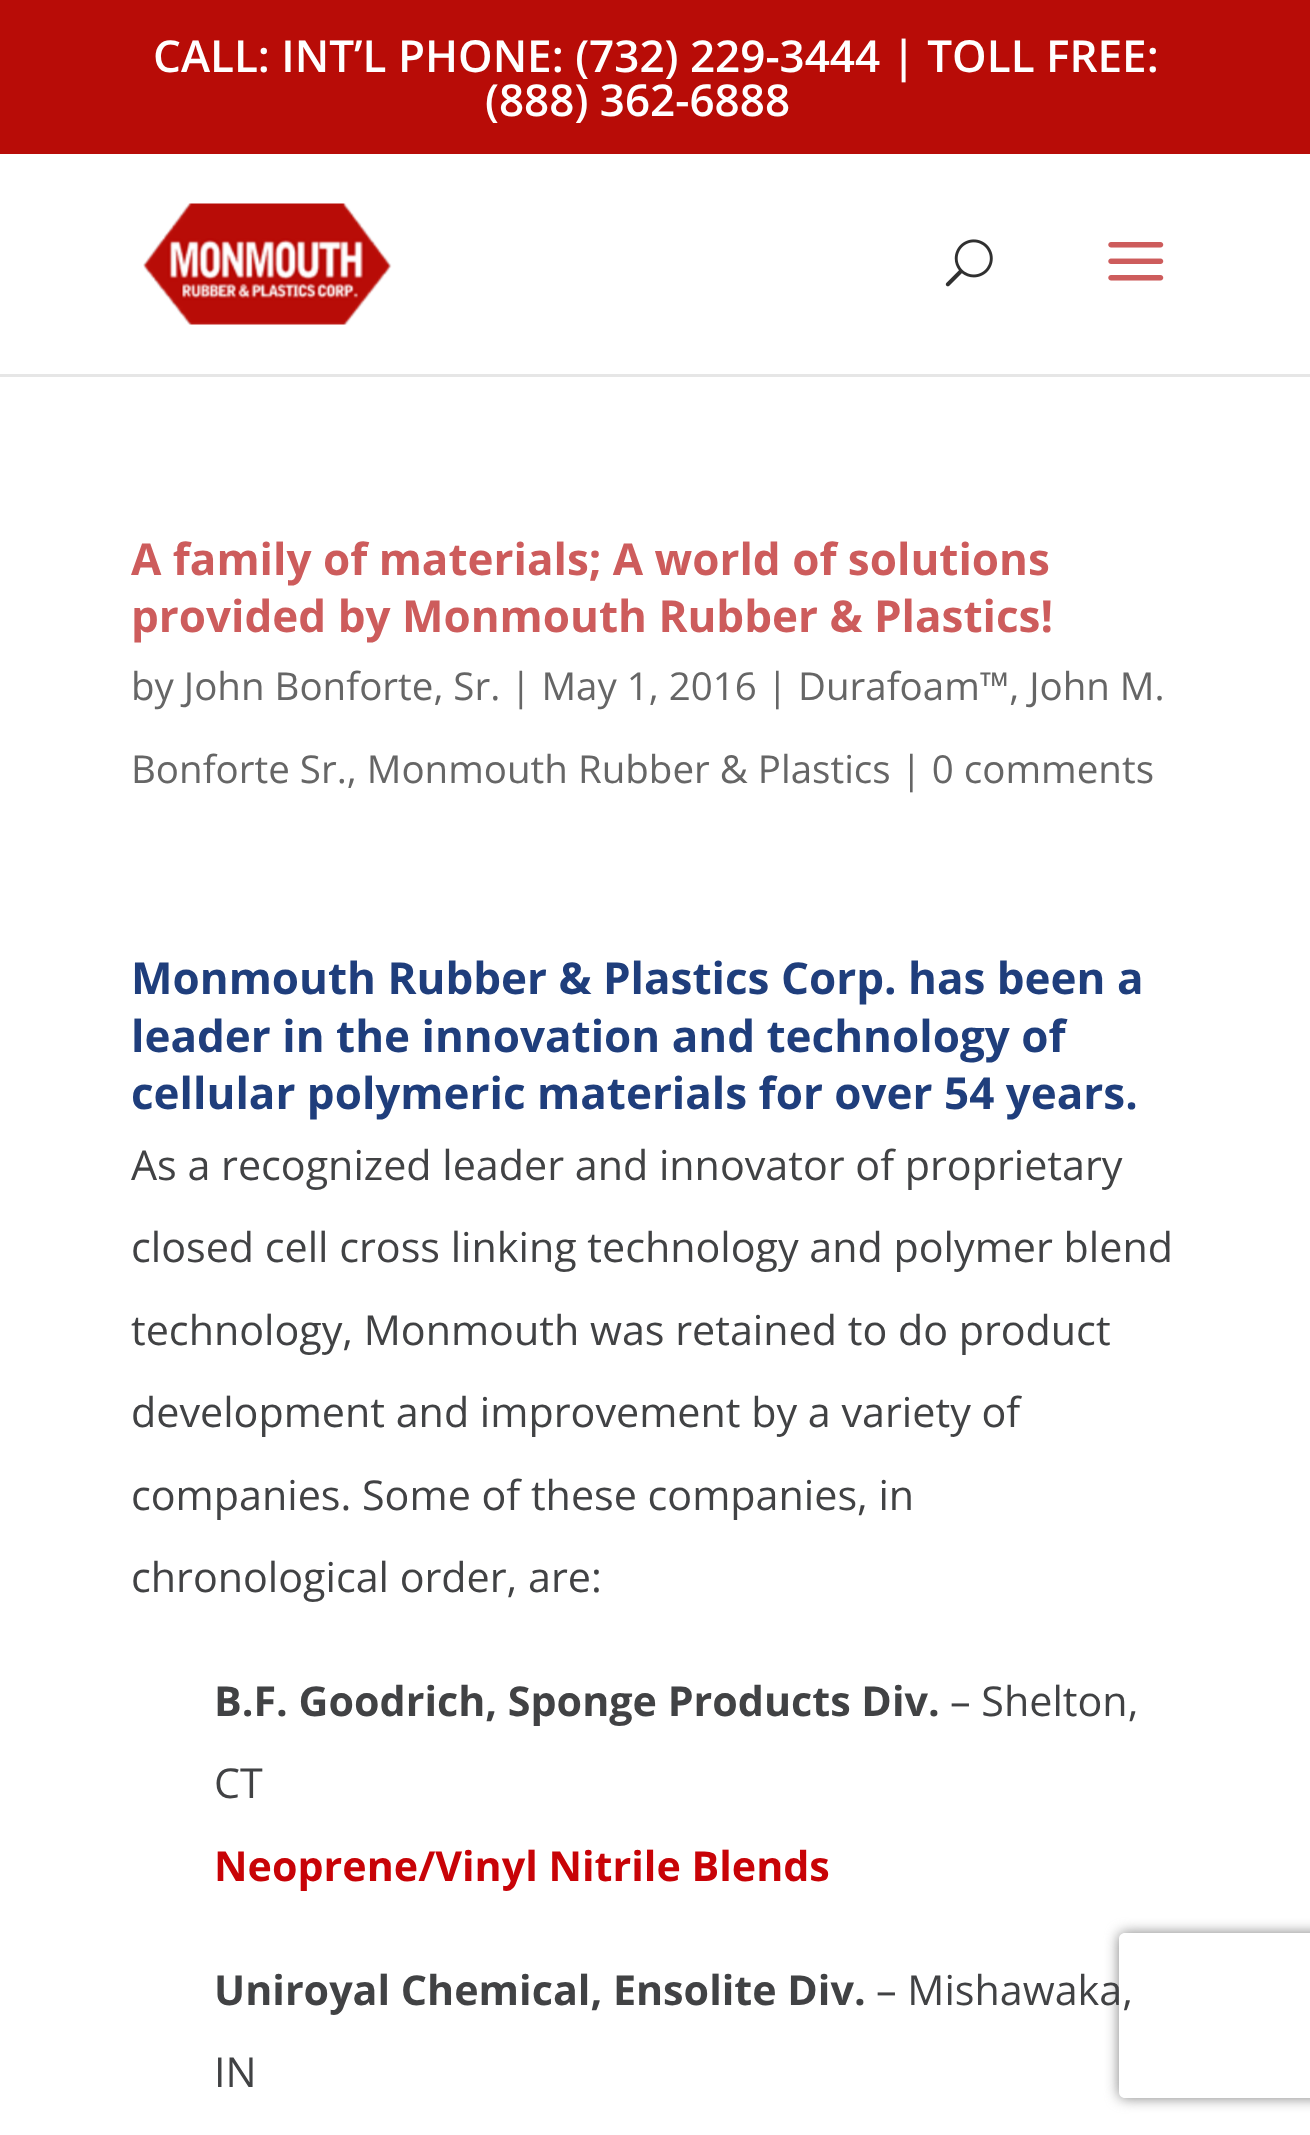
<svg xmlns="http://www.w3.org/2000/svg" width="1310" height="2135">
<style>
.a{font:600 44px Open Sans;fill:#fff}
.b{font:bold 44px Open Sans;fill:#cd5c5c}
.c{font:38.5px Open Sans;fill:#666}
.d{font:bold 44px Open Sans;fill:#1f3e7c}
.e{font:41.25px Open Sans;fill:#414244}
.f{font:bold 41.25px Open Sans;fill:#414244}
.g{font:bold 41.25px Open Sans;fill:#c80307}
</style>
<defs>
<clipPath id="clip1"><path d="M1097 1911h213v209h-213zm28 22h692c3.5 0 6 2.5 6 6v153c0 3.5-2.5 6-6 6h-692c-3.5 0-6-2.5-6-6v-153c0-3.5 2.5-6 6-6z" clip-rule="evenodd"/></clipPath>
</defs>
<rect width="100%" height="100%" fill="#fff"/>
<path fill="#b80c07" d="M0 0h1310v154H0z"/>
<path fill="#e6e6e6" d="M0 374v3h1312v-220v217z"/>
<image href="1.png" x="143" y="203" width="249" height="122"/>
<image href="2.png" x="945" y="239" width="48" height="48"/>
<image href="3.png" x="1108" y="242" width="56" height="39"/>
<g clip-path="url(#clip1)">
<rect fill="#808080" filter="blur(7px)" x="1119" y="1933" width="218" height="165" rx="6"/>
</g>
<text class="a" x="153" y="72">CALL: INT’L PHONE: (732) 229-3444 | TOLL FREE:</text>
<text class="a" x="485" y="116">(888) 362-6888</text>
<text class="b" x="131" y="575">A family of materials; A world of solutions</text>
<text class="b" x="131" y="632">provided by Monmouth Rubber &amp; Plastics!</text>
<text class="c" x="131" y="700">by John Bonforte, Sr. | May 1, 2016 | Durafoam™, John M.</text>
<text class="c" x="131" y="783">Bonforte Sr., Monmouth Rubber &amp; Plastics | 0 comments</text>
<text class="d" x="131" y="994">Monmouth Rubber &amp; Plastics Corp. has been a</text>
<text class="d" x="131" y="1052">leader in the innovation and technology of</text>
<text class="d" x="131" y="1109">cellular polymeric materials for over 54 years.</text>
<text class="e" x="131" y="1180">As a recognized leader and innovator of proprietary</text>
<text class="e" x="131" y="1262">closed cell cross linking technology and polymer blend</text>
<text class="e" x="131" y="1345">technology, Monmouth was retained to do product</text>
<text class="e" x="131" y="1427">development and improvement by a variety of</text>
<text class="e" x="131" y="1510">companies. Some of these companies, in</text>
<text class="e" x="131" y="1592">chronological order, are:</text>
<text class="f" x="214" y="1716">B.F. Goodrich, Sponge Products Div.</text>
<text class="e" x="950" y="1716">– Shelton,</text>
<text class="e" x="214" y="1798">CT</text>
<text class="g" x="214" y="1881">Neoprene/Vinyl Nitrile Blends</text>
<text class="f" x="214" y="2005">Uniroyal Chemical, Ensolite Div.</text>
<text class="e" x="876" y="2005">– Mishawaka,</text>
<text class="e" x="214" y="2087">IN</text>
</svg>
